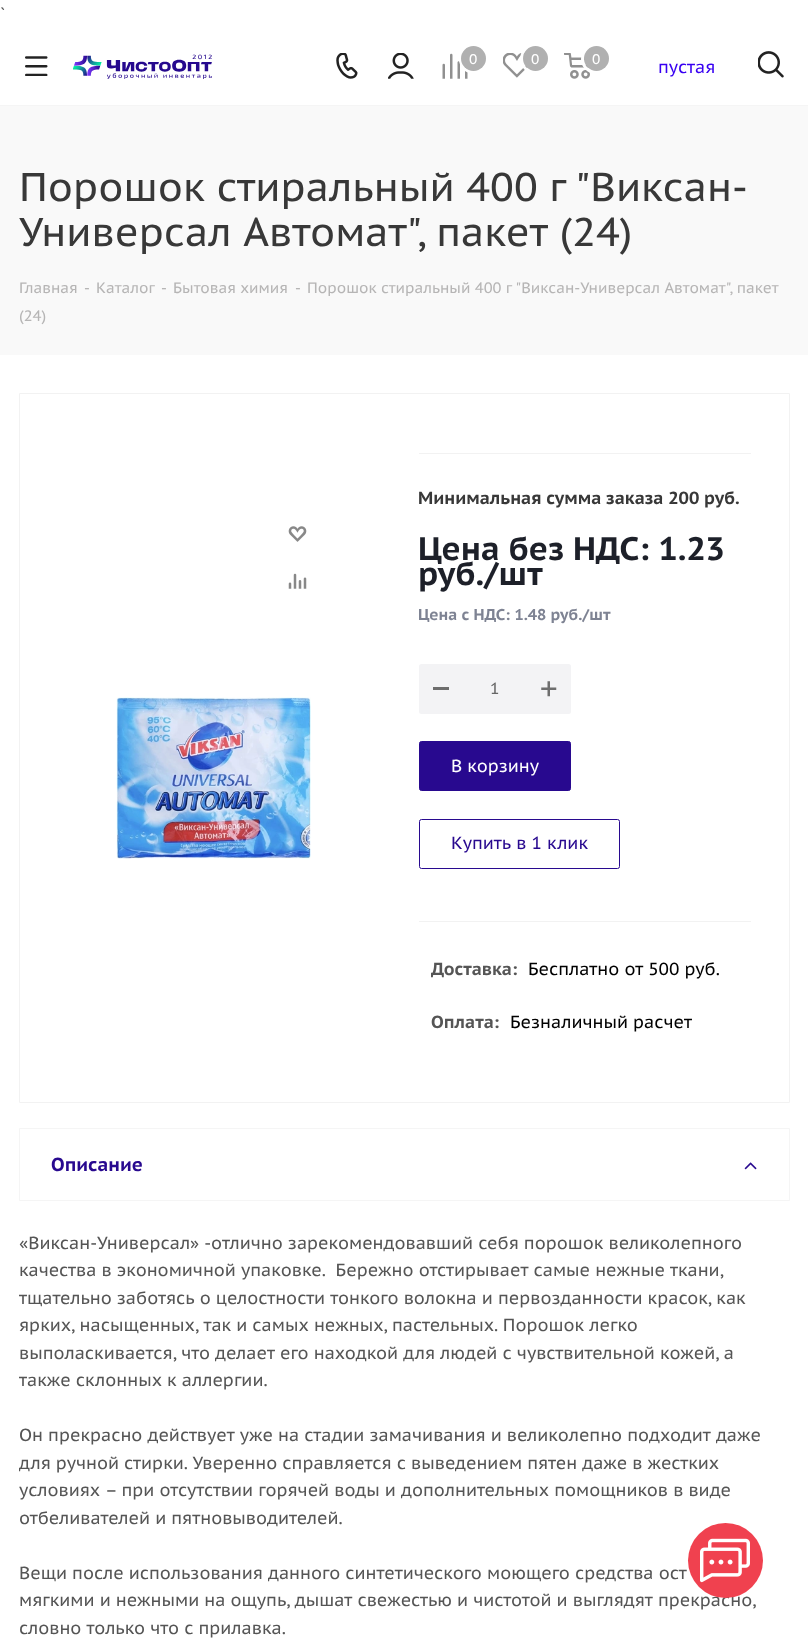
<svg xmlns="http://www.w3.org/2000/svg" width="808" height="1643">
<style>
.a{font:17.5px PT Sans Caption;fill:#555}
.b{font:14px PT Sans Caption;fill:#fff}
.c{font:17.5px PT Sans Caption;fill:#3800f2}
.d{font:40px PT Sans Caption;fill:#383838}
.e{font:15px PT Sans Caption;fill:#b6b5b5}
.f{font:bold 17.5px PT Sans Caption;fill:#383838}
.g{font:bold 32.5px PT Sans Caption;fill:#1d2029}
.h{font:bold 15.6px PT Sans Caption;fill:#7e8393}
.i{font:16px PT Sans Caption;fill:#666}
.j{font:17.5px PT Sans Caption;fill:#fff}
.k{font:17.5px PT Sans Caption;fill:#28098f}
.l{font:bold 17.5px PT Sans Caption;fill:#555}
.m{font:17.5px PT Sans Caption;fill:#000}
.n{font:bold 18.75px PT Sans Caption;fill:#28098f}
</style>
<rect width="100%" height="100%" fill="#fff"/>
<path fill="#f5f5f5" d="M0 105h808v1H0z"/>
<image href="1.png" x="25" y="56" width="23" height="20"/>
<image href="2.png" x="73" y="54" width="139" height="25"/>
<image href="3.png" x="336" y="53" width="22" height="26"/>
<image href="4.png" x="388" y="53" width="26" height="26"/>
<image href="5.png" x="442" y="53" width="26" height="26"/>
<circle fill="none" stroke="#fff" stroke-width="3" cx="474" cy="59" r="13.5"/>
<circle fill="#b0b0b0" cx="473.5" cy="58.5" r="12.5"/>
<image href="6.png" x="503" y="53" width="25" height="25"/>
<circle fill="none" stroke="#fff" stroke-width="3" cx="535" cy="59" r="13.5"/>
<circle fill="#b0b0b0" cx="535.5" cy="58.5" r="12.5"/>
<image href="7.png" x="564" y="53" width="26" height="26"/>
<circle fill="none" stroke="#fff" stroke-width="3" cx="596" cy="59" r="13.5"/>
<circle fill="#b0b0b0" cx="596.5" cy="58.5" r="12.5"/>
<image href="8.png" x="758" y="51" width="26" height="27"/>
<path fill="#f9f9f9" d="M0 106h808v249H0z"/>
<path fill="none" stroke="#f2f2f2" d="M19.5 393.5h770v709H19.5z"/>
<image href="9.png" x="288" y="526" width="19" height="16"/>
<image href="10.png" x="288" y="573" width="19" height="16"/>
<image href="11.png" x="116" y="697" width="195" height="162"/>
<path fill="#f2f2f2" d="M419 453h332v1H419z"/>
<path fill="#f2f2f2" d="M419 921h332v1H419z"/>
<rect fill="#f3f3f5" x="419" y="664" width="152" height="50" rx="2.5"/>
<path fill="#6d6d6d" d="M433 687h16v3H433z"/>
<image href="12.png" x="541" y="681" width="16" height="16"/>
<rect fill="#28098f" stroke="#28098f" x="419.5" y="741.5" width="151" height="49" rx="2"/>
<rect fill="none" stroke="#28098f" x="419.5" y="819.5" width="200" height="49" rx="2"/>
<path fill="none" stroke="#f5f5f5" d="M19.5 1128.5h770v72H19.5z"/>
<image href="13.png" x="744" y="1162" width="13" height="8"/>
<text class="a" x="0" y="20">`</text>
<text class="b" x="469" y="64">0</text>
<text class="b" x="531" y="64">0</text>
<text class="b" x="592" y="64">0</text>
<text class="c" x="658" y="73">пустая</text>
<text class="d" x="19" y="201">Порошок стиральный 400 г "Виксан-</text>
<text class="d" x="19" y="246">Универсал Автомат", пакет (24)</text>
<text class="e" x="19" y="293">Главная</text>
<text class="e" x="84" y="293">-</text>
<text class="e" x="96" y="293">Каталог</text>
<text class="e" x="161" y="293">-</text>
<text class="e" x="173" y="293">Бытовая химия</text>
<text class="e" x="295" y="293">-</text>
<text class="e" x="307" y="293">Порошок стиральный 400 г "Виксан-Универсал Автомат", пакет</text>
<text class="e" x="19" y="321">(24)</text>
<text class="f" x="418" y="504">Минимальная сумма заказа 200 руб.</text>
<text class="g" x="418" y="560">Цена без НДС: 1.23</text>
<text class="g" x="418" y="585">руб./шт</text>
<text class="h" x="418" y="620">Цена с НДС: 1.48 руб./шт</text>
<text class="i" x="490" y="694">1</text>
<text class="j" x="451" y="772">В корзину</text>
<text class="k" x="451" y="849">Купить в 1 клик</text>
<text class="l" x="431" y="975">Доставка:</text>
<text class="m" x="528" y="975">Бесплатно от 500 руб.</text>
<text class="l" x="431" y="1028">Оплата:</text>
<text class="m" x="510" y="1028">Безналичный расчет</text>
<text class="n" x="51" y="1171">Описание</text>
<text class="a" x="19" y="1249">«Виксан-Универсал» -отлично зарекомендовавший себя порошок великолепного</text>
<text class="a" xml:space="preserve" x="19" y="1276">качества в экономичной упаковке.  Бережно отстирывает самые нежные ткани,</text>
<text class="a" x="19" y="1304">тщательно заботясь о целостности тонкого волокна и первозданности красок, как</text>
<text class="a" x="19" y="1331">ярких, насыщенных, так и самых нежных, пастельных. Порошок легко</text>
<text class="a" x="19" y="1359">выполаскивается, что делает его находкой для людей с чувствительной кожей, а</text>
<text class="a" x="19" y="1386">также склонных к аллергии.</text>
<text class="a" x="19" y="1441">Он прекрасно действует уже на стадии замачивания и великолепно подходит даже</text>
<text class="a" x="19" y="1469">для ручной стирки. Уверенно справляется с выведением пятен даже в жестких</text>
<text class="a" x="19" y="1496">условиях – при отсутствии горячей воды и дополнительных помощников в виде</text>
<text class="a" x="19" y="1524">отбеливателей и пятновыводителей.</text>
<text class="a" x="19" y="1579">Вещи после использования данного синтетического моющего средства ост</text>
<text class="a" x="19" y="1606">мягкими и нежными на ощупь, дышат свежестью и чистотой и выглядят прекрасно,</text>
<text class="a" x="19" y="1634">словно только что с прилавка.</text>
<circle fill="#f0414f" cx="725.5" cy="1560.5" r="37.5"/>
<image href="14.png" x="700" y="1538" width="50" height="45"/>
</svg>
